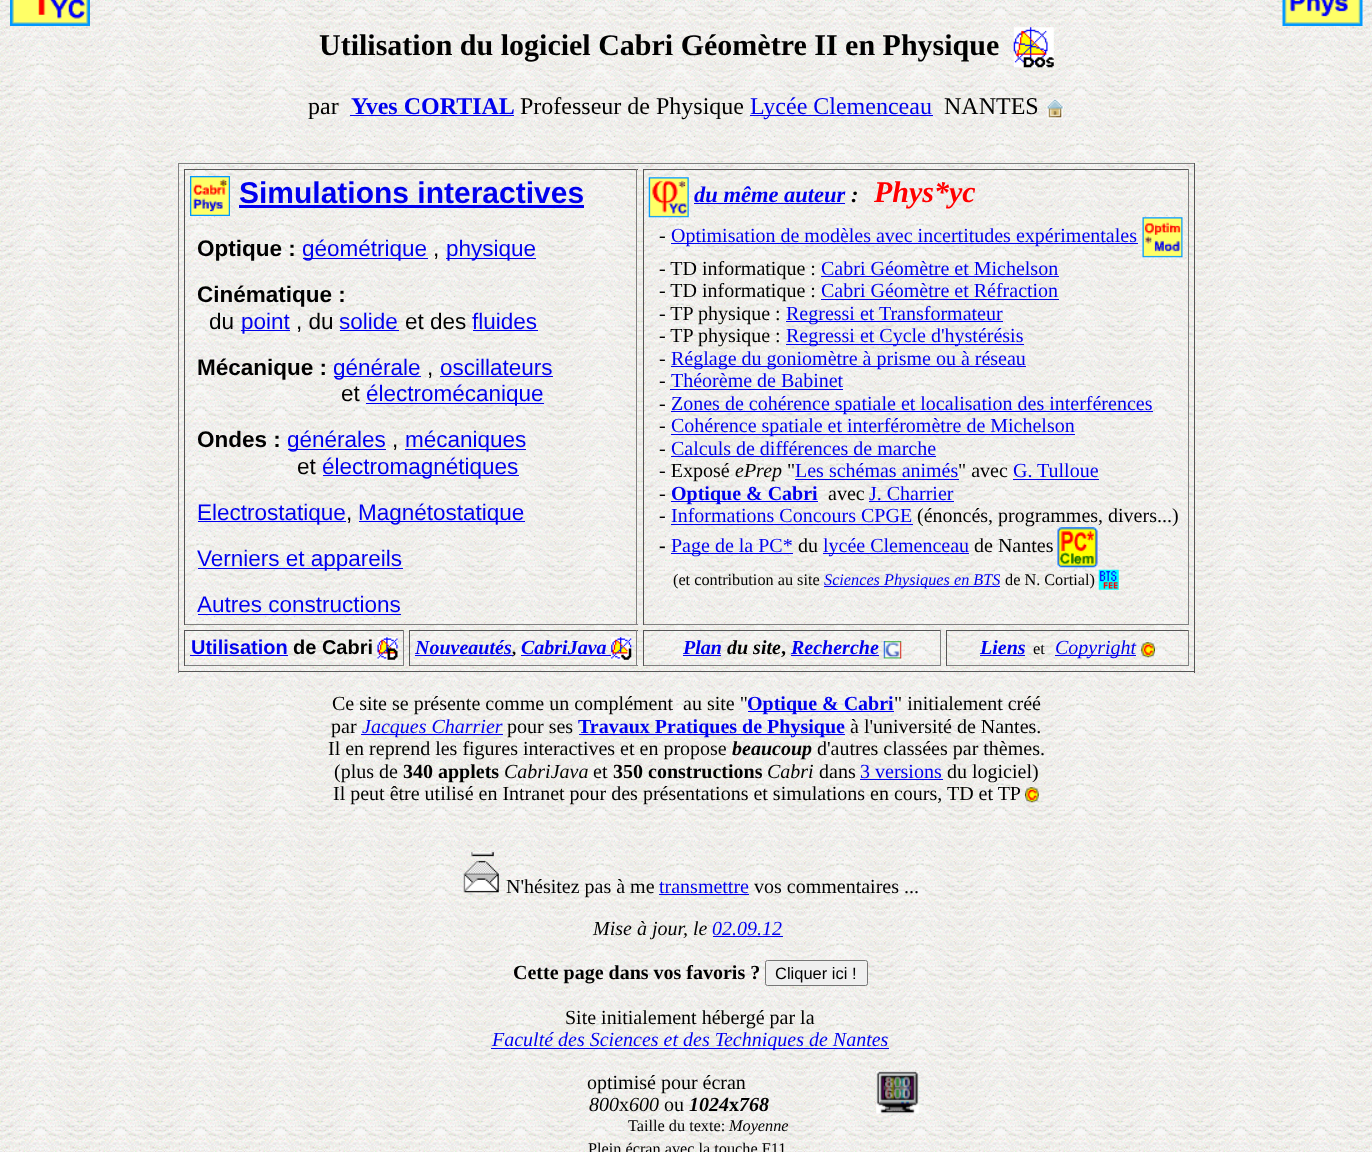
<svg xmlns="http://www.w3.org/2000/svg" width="1372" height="1152">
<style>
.a{font:bold 30px Liberation Serif;fill:#000}
.b{font:24px Liberation Serif;fill:#000}
.c{font:bold 24px Liberation Serif;fill:#00e}
.d{font:24px Liberation Serif;fill:#00e}
.e{font:bold 30px Liberation Sans;fill:#00e}
.f{font:bold 22.5px Liberation Sans;fill:#000}
.g{font:22.5px Liberation Sans;fill:#00e}
.h{font:22.5px Liberation Sans;fill:#000}
.i{font:italic bold 22.5px Liberation Serif;fill:#00e}
.j{font:italic bold 22.5px Liberation Serif;fill:#000}
.k{font:italic bold 30px Liberation Serif;fill:#f00}
.l{font:20px Liberation Serif;fill:#000}
.m{font:20px Liberation Serif;fill:#00e}
.n{font:italic 20px Liberation Serif;fill:#000}
.o{font:bold 20px Liberation Serif;fill:#00e}
.p{font:bold 20px Liberation Serif;fill:#000}
.q{font:16.25px Liberation Serif;fill:#000}
.r{font:italic 16.25px Liberation Serif;fill:#00e}
.s{font:bold 20px Liberation Sans;fill:#00e}
.t{font:bold 20px Liberation Sans;fill:#000}
.u{font:italic bold 20px Liberation Serif;fill:#00e}
.v{font:bold 16.5px Liberation Serif;fill:#000}
.w{font:italic bold 20px Liberation Serif;fill:#000}
.x{font:16.5px Liberation Serif;fill:#000}
.y{font:italic 20px Liberation Serif;fill:#00e}
.z{font:16.5px Liberation Sans;fill:#000}
.a1{font:italic 16.25px Liberation Serif;fill:#000}
</style>
<rect width="100%" height="100%" fill="#fff"/>
<image href="1.png" x="0" y="0" width="1372" height="1152"/>
<image href="2.png" x="10" y="0" width="80" height="26"/>
<image href="3.png" x="1282" y="0" width="81" height="26"/>
<image href="4.png" x="1013" y="27" width="41" height="41"/>
<path fill="#00e" d="M350 115h164v1H350z"/>
<path fill="#00e" d="M750 115h183v1H750z"/>
<image href="5.png" x="1046" y="98" width="18" height="21"/>
<path fill="#808080" d="M178 163h1017v1H178z"/>
<path fill="#555" d="M1194 163h1v510H1194z"/>
<path fill="#555" d="M178 671h1017v1H178z"/>
<path fill="#808080" d="M178 163h1v510H178z"/>
<path fill="#555" d="M184 169h454v1H184z"/>
<path fill="#808080" d="M636 169h1v456H636z"/>
<path fill="#808080" d="M184 624h454v1H184z"/>
<path fill="#555" d="M184 169h1v456H184z"/>
<image href="6.png" x="190" y="176" width="40" height="40"/>
<path fill="#00e" d="M239 205h345v3H239z"/>
<path fill="#00e" d="M303 258h125v1H303z"/>
<path fill="#00e" d="M446 258h90v1H446z"/>
<path fill="#00e" d="M241 330h49v1H241z"/>
<path fill="#00e" d="M340 330h59v1H340z"/>
<path fill="#00e" d="M473 330h65v1H473z"/>
<path fill="#00e" d="M334 376h87v1H334z"/>
<path fill="#00e" d="M440 376h113v1H440z"/>
<path fill="#00e" d="M366 403h178v1H366z"/>
<path fill="#00e" d="M288 449h98v1H288z"/>
<path fill="#00e" d="M405 449h121v1H405z"/>
<path fill="#00e" d="M323 475h196v1H323z"/>
<path fill="#00e" d="M198 521h148v1H198z"/>
<path fill="#00e" d="M359 521h166v1H359z"/>
<path fill="#00e" d="M198 568h205v1H198z"/>
<path fill="#00e" d="M198 614h203v1H198z"/>
<path fill="#555" d="M643 169h546v1H643z"/>
<path fill="#808080" d="M1188 169h1v456H1188z"/>
<path fill="#808080" d="M643 624h546v1H643z"/>
<path fill="#555" d="M643 169h1v456H643z"/>
<image href="7.png" x="648" y="177" width="41" height="41"/>
<path fill="#00e" d="M694 203h151v1H694z"/>
<path fill="#00e" d="M671 243h467v1H671z"/>
<image href="8.png" x="1142" y="217" width="41" height="41"/>
<path fill="#00e" d="M821 276h238v1H821z"/>
<path fill="#00e" d="M821 299h238v1H821z"/>
<path fill="#00e" d="M786 321h217v1H786z"/>
<path fill="#00e" d="M786 344h238v1H786z"/>
<path fill="#00e" d="M671 366h355v1H671z"/>
<path fill="#00e" d="M670 389h173v1H670z"/>
<path fill="#00e" d="M671 411h482v1H671z"/>
<path fill="#00e" d="M671 434h404v1H671z"/>
<path fill="#00e" d="M671 456h265v1H671z"/>
<path fill="#00e" d="M795 479h164v1H795z"/>
<path fill="#00e" d="M1013 479h86v1H1013z"/>
<path fill="#00e" d="M671 501h147v1H671z"/>
<path fill="#00e" d="M869 501h85v1H869z"/>
<path fill="#00e" d="M671 524h242v1H671z"/>
<path fill="#00e" d="M671 553h122v1H671z"/>
<path fill="#00e" d="M823 553h146v1H823z"/>
<image href="9.png" x="1057" y="527" width="41" height="41"/>
<path fill="#00e" d="M824 586h176v1H824z"/>
<image href="10.png" x="1098" y="569" width="21" height="21"/>
<path fill="#555" d="M184 630h220v1H184z"/>
<path fill="#808080" d="M403 630h1v36H403z"/>
<path fill="#808080" d="M184 665h220v1H184z"/>
<path fill="#555" d="M184 630h1v36H184z"/>
<path fill="#00e" d="M190 655h98v1H190z"/>
<image href="11.png" x="377" y="637" width="21" height="23"/>
<path fill="#555" d="M409 630h229v1H409z"/>
<path fill="#808080" d="M636 630h1v36H636z"/>
<path fill="#808080" d="M409 665h229v1H409z"/>
<path fill="#555" d="M409 630h1v36H409z"/>
<path fill="#00e" d="M415 655h98v1H415z"/>
<path fill="#00e" d="M521 655h90v1H521z"/>
<image href="12.png" x="611" y="637" width="21" height="23"/>
<path fill="#555" d="M643 630h298v1H643z"/>
<path fill="#808080" d="M940 630h1v36H940z"/>
<path fill="#808080" d="M643 665h298v1H643z"/>
<path fill="#555" d="M643 630h1v36H643z"/>
<path fill="#00e" d="M683 655h38v1H683z"/>
<path fill="#00e" d="M791 655h88v1H791z"/>
<image href="13.png" x="883" y="641" width="19" height="18"/>
<path fill="#555" d="M946 630h243v1H946z"/>
<path fill="#808080" d="M1188 630h1v36H1188z"/>
<path fill="#808080" d="M946 665h243v1H946z"/>
<path fill="#555" d="M946 630h1v36H946z"/>
<path fill="#00e" d="M980 655h45v1H980z"/>
<path fill="#00e" d="M1055 655h81v1H1055z"/>
<image href="14.png" x="1141" y="642" width="14" height="16"/>
<path fill="#00e" d="M748 711h146v1H748z"/>
<path fill="#00e" d="M361 734h142v1H361z"/>
<path fill="#00e" d="M579 734h266v1H579z"/>
<path fill="#00e" d="M860 779h83v1H860z"/>
<image href="15.png" x="1025" y="787" width="14" height="16"/>
<image href="16.png" x="463" y="852" width="36" height="41"/>
<path fill="#00e" d="M659 894h90v1H659z"/>
<path fill="#00e" d="M713 936h70v1H713z"/>
<rect fill="#efefef" stroke="#767676" x="765.5" y="960.5" width="102" height="25" rx="2"/>
<path fill="#00e" d="M491 1048h398v1H491z"/>
<image href="17.png" x="876" y="1071" width="43" height="43"/>
<text class="a" x="319" y="55">Utilisation du logiciel Cabri Géomètre II en Physique</text>
<text class="b" x="308" y="114">par</text>
<text class="c" x="351" y="114">Yves CORTIAL</text>
<text class="b" x="520" y="114">Professeur de Physique</text>
<text class="d" x="750" y="114">Lycée Clemenceau</text>
<text class="b" x="944" y="114">NANTES</text>
<text class="e" x="239" y="203">Simulations interactives</text>
<text class="f" x="197" y="256">Optique :</text>
<text class="g" x="302" y="256">géométrique</text>
<text class="h" x="433" y="256">,</text>
<text class="g" x="446" y="256">physique</text>
<text class="f" x="197" y="302">Cinématique :</text>
<text class="h" x="209" y="329">du</text>
<text class="g" x="241" y="329">point</text>
<text class="h" x="296" y="329">, du</text>
<text class="g" x="339" y="329">solide</text>
<text class="h" x="405" y="329">et des</text>
<text class="g" x="472" y="329">fluides</text>
<text class="f" x="197" y="375">Mécanique :</text>
<text class="g" x="333" y="375">générale</text>
<text class="h" x="427" y="375">,</text>
<text class="g" x="440" y="375">oscillateurs</text>
<text class="h" x="341" y="401">et</text>
<text class="g" x="366" y="401">électromécanique</text>
<text class="f" x="197" y="447">Ondes :</text>
<text class="g" x="287" y="447">générales</text>
<text class="h" x="392" y="447">,</text>
<text class="g" x="405" y="447">mécaniques</text>
<text class="h" x="297" y="474">et</text>
<text class="g" x="322" y="474">électromagnétiques</text>
<text class="g" x="197" y="520">Electrostatique</text>
<text class="h" x="346" y="520">,</text>
<text class="g" x="358" y="520">Magnétostatique</text>
<text class="g" x="197" y="566">Verniers et appareils</text>
<text class="g" x="197" y="612">Autres constructions</text>
<text class="i" x="694" y="202">du même auteur</text>
<text class="j" x="851" y="202">:</text>
<text class="k" x="874" y="202">Phys*yc</text>
<text class="l" x="659" y="242">-</text>
<text class="m" x="671" y="242">Optimisation de modèles avec incertitudes expérimentales</text>
<text class="l" x="659" y="275">- TD informatique :</text>
<text class="m" x="821" y="275">Cabri Géomètre et Michelson</text>
<text class="l" x="659" y="297">- TD informatique :</text>
<text class="m" x="821" y="297">Cabri Géomètre et Réfraction</text>
<text class="l" x="659" y="320">- TP physique :</text>
<text class="m" x="786" y="320">Regressi et Transformateur</text>
<text class="l" x="659" y="342">- TP physique :</text>
<text class="m" x="786" y="342">Regressi et Cycle d'hystérésis</text>
<text class="l" x="659" y="365">-</text>
<text class="m" x="671" y="365">Réglage du goniomètre à prisme ou à réseau</text>
<text class="l" x="659" y="387">-</text>
<text class="m" x="671" y="387">Théorème de Babinet</text>
<text class="l" x="659" y="410">-</text>
<text class="m" x="671" y="410">Zones de cohérence spatiale et localisation des interférences</text>
<text class="l" x="659" y="432">-</text>
<text class="m" x="671" y="432">Cohérence spatiale et interféromètre de Michelson</text>
<text class="l" x="659" y="455">-</text>
<text class="m" x="671" y="455">Calculs de différences de marche</text>
<text class="l" x="659" y="477">- Exposé</text>
<text class="n" x="735" y="477">ePrep</text>
<text class="l" x="787" y="477">"</text>
<text class="m" x="795" y="477">Les schémas animés</text>
<text class="l" x="958" y="477">" avec</text>
<text class="m" x="1013" y="477">G.</text>
<text class="m" x="1037" y="477">Tulloue</text>
<text class="l" x="659" y="500">-</text>
<text class="o" x="671" y="500">Optique &amp; Cabri</text>
<text class="l" x="828" y="500">avec</text>
<text class="m" x="869" y="500">J. Charrier</text>
<text class="l" x="659" y="522">-</text>
<text class="m" x="671" y="522">Informations Concours CPGE</text>
<text class="l" x="917" y="522">(énoncés, programmes, divers...)</text>
<text class="p" x="659" y="552">-</text>
<text class="m" x="671" y="552">Page de la PC*</text>
<text class="l" x="798" y="552">du</text>
<text class="m" x="823" y="552">lycée Clemenceau</text>
<text class="l" x="974" y="552">de Nantes</text>
<text class="q" x="673" y="585">(et contribution au site</text>
<text class="r" x="824" y="585">Sciences Physiques en BTS</text>
<text class="q" x="1005" y="585">de N. Cortial)</text>
<text class="s" x="191" y="654">Utilisation</text>
<text class="t" x="293" y="654">de Cabri</text>
<text class="u" x="415" y="654">Nouveautés</text>
<text class="v" x="512" y="654">,</text>
<text class="u" x="521" y="654">CabriJava</text>
<text class="u" x="683" y="654">Plan</text>
<text class="w" x="727" y="654">du site</text>
<text class="p" x="781" y="654">,</text>
<text class="u" x="791" y="654">Recherche</text>
<text class="u" x="980" y="654">Liens</text>
<text class="x" x="1033" y="654">et</text>
<text class="y" x="1055" y="654">Copyright</text>
<text class="l" xml:space="preserve" x="332" y="710">Ce site se présente comme un complément  au site "</text>
<text class="o" x="747" y="710">Optique &amp; Cabri</text>
<text class="l" x="894" y="710">" initialement créé</text>
<text class="l" x="331" y="733">par</text>
<text class="y" x="362" y="733">Jacques Charrier</text>
<text class="l" x="507" y="733">pour ses</text>
<text class="o" x="578" y="733">Travaux Pratiques de Physique</text>
<text class="l" x="850" y="733">à l'université de Nantes.</text>
<text class="l" x="328" y="755">Il en reprend les figures interactives et en propose</text>
<text class="w" x="732" y="755">beaucoup</text>
<text class="l" x="817" y="755">d'autres classées par thèmes.</text>
<text class="l" x="334" y="778">(plus de</text>
<text class="p" x="403" y="778">340 applets</text>
<text class="n" x="504" y="778">CabriJava</text>
<text class="l" x="593" y="778">et</text>
<text class="p" x="613" y="778">350 constructions</text>
<text class="n" x="767" y="778">Cabri</text>
<text class="l" x="819" y="778">dans</text>
<text class="m" x="860" y="778">3 versions</text>
<text class="l" x="947" y="778">du logiciel)</text>
<text class="l" x="333" y="800">Il peut être utilisé en Intranet pour des présentations et simulations en cours, TD et TP</text>
<text class="l" x="506" y="893">N'hésitez pas à me</text>
<text class="m" x="659" y="893">transmettre</text>
<text class="l" x="754" y="893">vos commentaires ...</text>
<text class="n" x="593" y="935">Mise à jour, le</text>
<text class="y" x="712" y="935">02.09.12</text>
<text class="p" x="513" y="979">Cette page dans vos favoris ?</text>
<text class="z" x="775" y="979">Cliquer ici !</text>
<text class="l" x="565" y="1024">Site initialement hébergé par la</text>
<text class="y" x="492" y="1046">Faculté des Sciences et des Techniques de Nantes</text>
<text class="l" x="587" y="1089">optimisé pour écran</text>
<text class="n" x="589" y="1111">800</text>
<text class="l" x="619" y="1111">x</text>
<text class="n" x="629" y="1111">600</text>
<text class="l" x="664" y="1111">ou</text>
<text class="w" x="689" y="1111">1024</text>
<text class="p" x="729" y="1111">x</text>
<text class="w" x="739" y="1111">768</text>
<text class="q" x="628" y="1131">Taille du texte:</text>
<text class="a1" x="729" y="1131">Moyenne</text>
<text class="q" x="588" y="1154">Plein écran avec la touche F11</text>
</svg>
